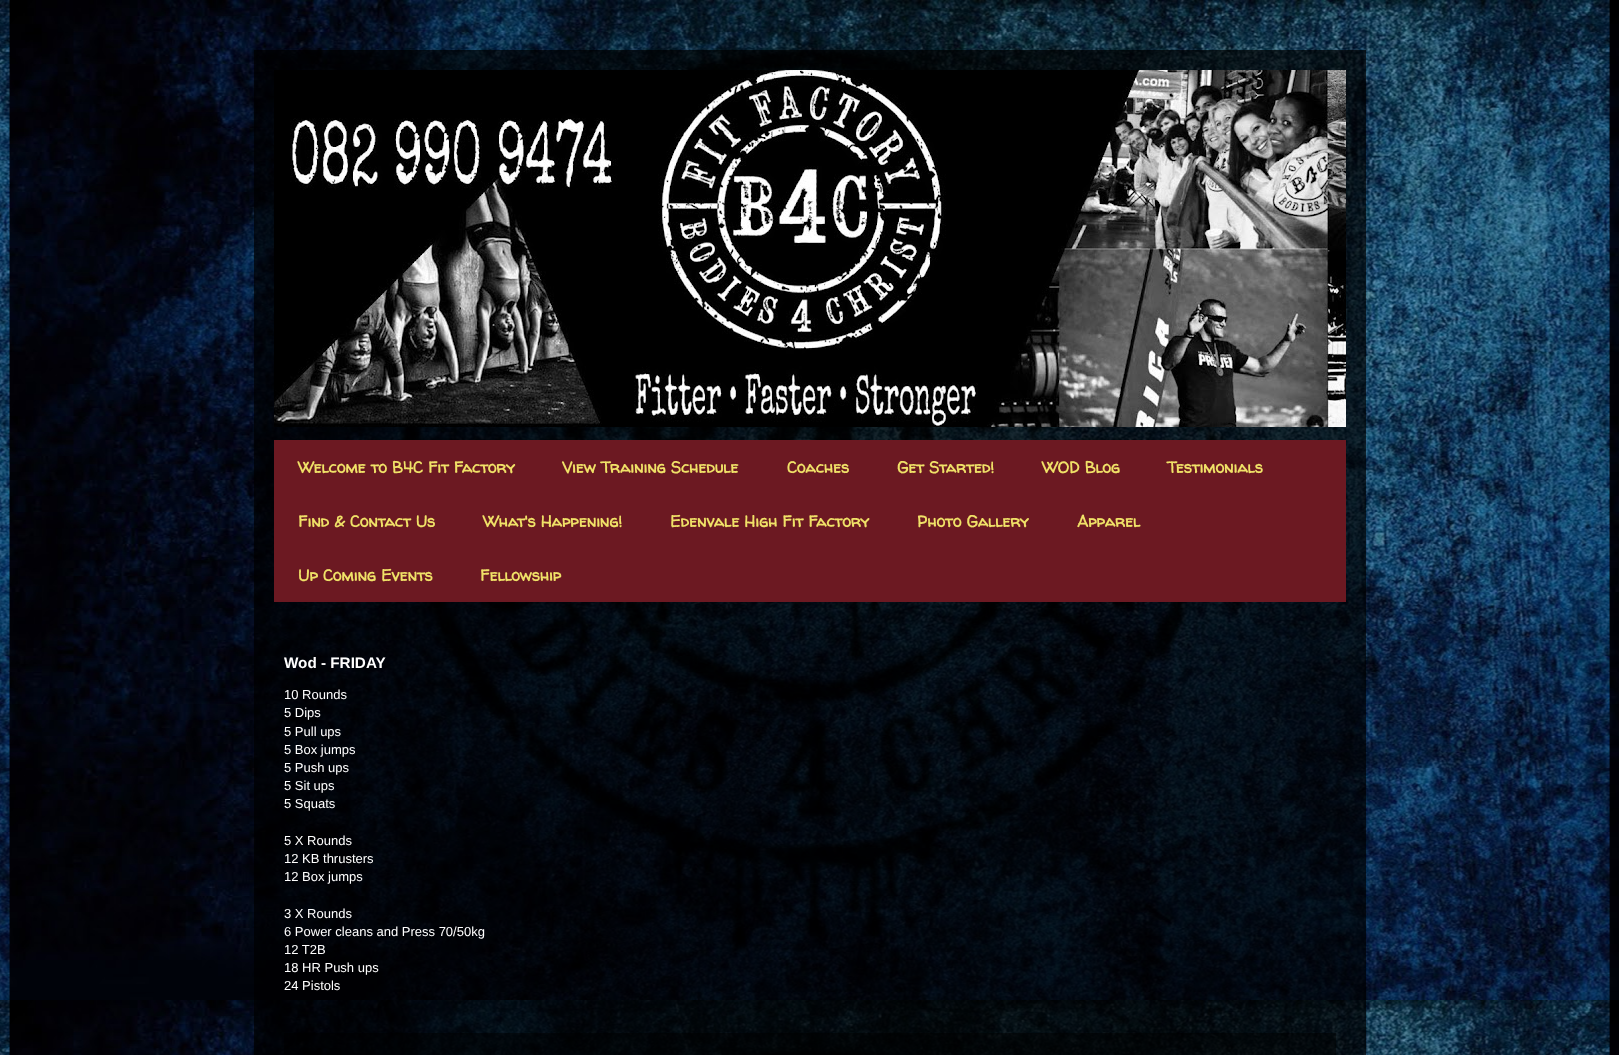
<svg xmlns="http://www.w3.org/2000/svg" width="1619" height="1055">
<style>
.a{font:bold 16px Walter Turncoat;fill:#f0e268}
.b{font:bold 15.25px Liberation Sans;fill:#fff}
.c{font:13px Liberation Sans;fill:#fff}
</style>
<rect width="100%" height="100%" fill="#fff"/>
<image href="1.png" x="0" y="0" width="1619" height="1055"/>
<path fill="#000000b3" d="M254 50h1112v1005H254z"/>
<image href="2.png" x="274" y="70" width="1072" height="357"/>
<path fill="#6c1922" d="M274 440h1072v162H274z"/>
<path fill="#00000080" d="M284 1033h1052v22H284z"/>
<text class="a" x="298" y="473">Welcome to B4C Fit Factory</text>
<text class="a" x="562" y="473">View Training Schedule</text>
<text class="a" x="787" y="473">Coaches</text>
<text class="a" x="897" y="473">Get Started!</text>
<text class="a" x="1042" y="473">WOD Blog</text>
<text class="a" x="1167" y="473">Testimonials</text>
<text class="a" x="298" y="527">Find &amp; Contact Us</text>
<text class="a" x="483" y="527">What's Happening!</text>
<text class="a" x="670" y="527">Edenvale High Fit Factory</text>
<text class="a" x="917" y="527">Photo Gallery</text>
<text class="a" x="1077" y="527">Apparel</text>
<text class="a" x="298" y="581">Up Coming Events</text>
<text class="a" x="480" y="581">Fellowship</text>
<text class="b" x="284" y="668">Wod - FRIDAY</text>
<text class="c" x="284" y="699">10 Rounds</text>
<text class="c" x="284" y="717">5 Dips</text>
<text class="c" x="284" y="736">5 Pull ups</text>
<text class="c" x="284" y="754">5 Box jumps</text>
<text class="c" x="284" y="772">5 Push ups</text>
<text class="c" x="284" y="790">5 Sit ups</text>
<text class="c" x="284" y="808">5 Squats</text>
<text class="c" x="284" y="845">5 X Rounds</text>
<text class="c" x="284" y="863">12 KB thrusters</text>
<text class="c" x="284" y="881">12 Box jumps</text>
<text class="c" x="284" y="918">3 X Rounds</text>
<text class="c" x="284" y="936">6 Power cleans and Press 70/50kg</text>
<text class="c" x="284" y="954">12 T2B</text>
<text class="c" x="284" y="972">18 HR Push ups</text>
<text class="c" x="284" y="990">24 Pistols</text>
</svg>
